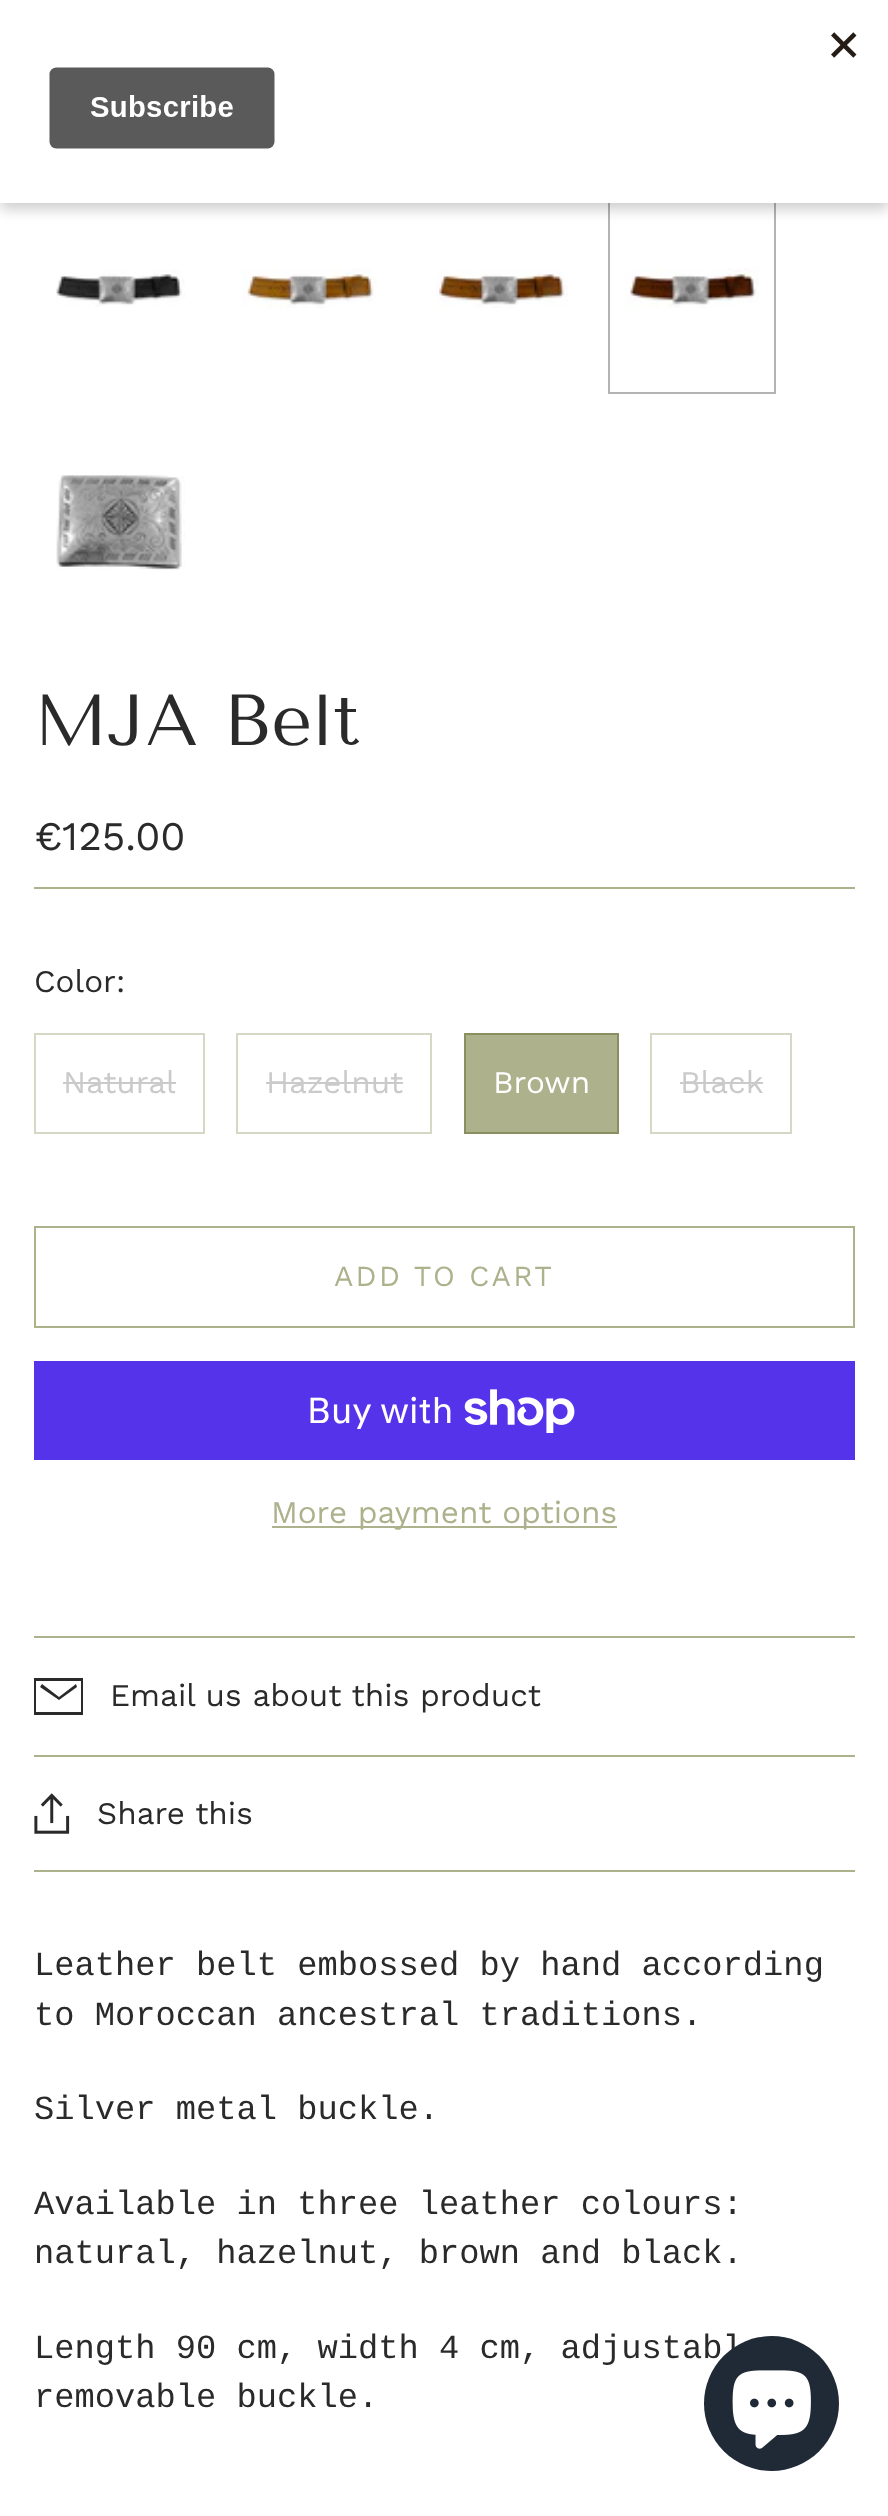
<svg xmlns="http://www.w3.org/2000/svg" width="888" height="2516">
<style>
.a{font:72px Tenor Sans;fill:#2a2a2a}
.b{font:40.5px Work Sans;fill:#2a2a2a}
.c{font:31.5px Work Sans;fill:#2a2a2a}
.d{font:31.5px Work Sans;fill:#cacaca}
.e{font:31.5px Work Sans;fill:#fff}
.f{font:29.25px Work Sans;letter-spacing:2.25px;fill:#adb18c}
.g{font:36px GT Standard;fill:#fff}
.h{font:31.5px Work Sans;fill:#adb18c}
.i{font:33.75px Liberation Mono;fill:#2a2a2a}
</style>
<rect width="100%" height="100%" fill="#fff"/>
<image href="5.png" x="625" y="268" width="134" height="40"/>
<path fill="none" stroke="#b3b3b3" stroke-width="2" d="M609 186h166v207H609z"/>
<path fill="#00000033" filter="blur(7px)" d="M0 7h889v202H0z"/>
<path fill="#fff" d="M0 0h888v203H0z"/>
<image href="1.png" x="49" y="32" width="808" height="117"/>
<image href="2.png" x="56" y="269" width="129" height="38"/>
<image href="3.png" x="242" y="268" width="135" height="40"/>
<image href="4.png" x="436" y="269" width="132" height="39"/>
<image href="6.png" x="56" y="475" width="129" height="95"/>
<path fill="#adb18c" d="M34 887h821v2H34z"/>
<path fill="#adb18c" d="M34 1636h821v2H34z"/>
<path fill="none" stroke="#d6d8c6" stroke-width="2" d="M35 1034h169v99H35z"/>
<path fill="#cacaca" d="M63 1082h113v2H63z"/>
<path fill="none" stroke="#d6d8c6" stroke-width="2" d="M237 1034h194v99H237z"/>
<path fill="#cacaca" d="M266 1082h137v2H266z"/>
<path fill="#adb18c" stroke="#8a8f61" stroke-width="2" d="M465 1034h153v99H465z"/>
<path fill="none" stroke="#d6d8c6" stroke-width="2" d="M651 1034h140v99H651z"/>
<path fill="#cacaca" d="M680 1082h83v2H680z"/>
<path fill="none" stroke="#adb18c" stroke-width="2" d="M35 1227h819v100H35z"/>
<path fill="#5433eb" d="M34 1361h821v99H34z"/>
<image href="7.png" x="464" y="1389" width="111" height="44"/>
<path fill="#adb18c" d="M272 1526h345v2H272z"/>
<path fill="#adb18c" d="M34 1755h821v2H34z"/>
<path fill="#2a2a2a" fill-rule="evenodd" d="M36 1681h45v31h-45zm-2-3h49v37h-49zm6 9l19 13l18-13l-1-3l-17 13l-17-13z"/>
<path fill="#adb18c" d="M34 1870h821v2H34z"/>
<image href="8.png" x="34" y="1793" width="36" height="41"/>
<text class="a" x="34" y="745">MJA Belt</text>
<text class="b" x="34" y="850">€125.00</text>
<text class="c" x="34" y="992">Color:</text>
<text class="d" x="63" y="1093">Natural</text>
<text class="d" x="266" y="1093">Hazelnut</text>
<text class="e" x="493" y="1093">Brown</text>
<text class="d" x="680" y="1093">Black</text>
<text class="f" x="334" y="1286">ADD TO CART</text>
<text class="g" x="307" y="1423">Buy with</text>
<text class="h" x="271" y="1523">More payment options</text>
<text class="c" x="110" y="1706">Email us about this product</text>
<text class="c" x="97" y="1824">Share this</text>
<text class="i" x="34" y="1975">Leather belt embossed by hand according</text>
<text class="i" x="34" y="2025">to Moroccan ancestral traditions.</text>
<text class="i" x="34" y="2119">Silver metal buckle.</text>
<text class="i" x="34" y="2214">Available in three leather colours:</text>
<text class="i" x="34" y="2263">natural, hazelnut, brown and black.</text>
<text class="i" x="34" y="2358">Length 90 cm, width 4 cm, adjustabl</text>
<text class="i" x="34" y="2407">removable buckle.</text>
<circle fill="#202a36" cx="771.5" cy="2403.5" r="67.5"/>
<image href="9.png" x="732" y="2370" width="79" height="79"/>
</svg>
